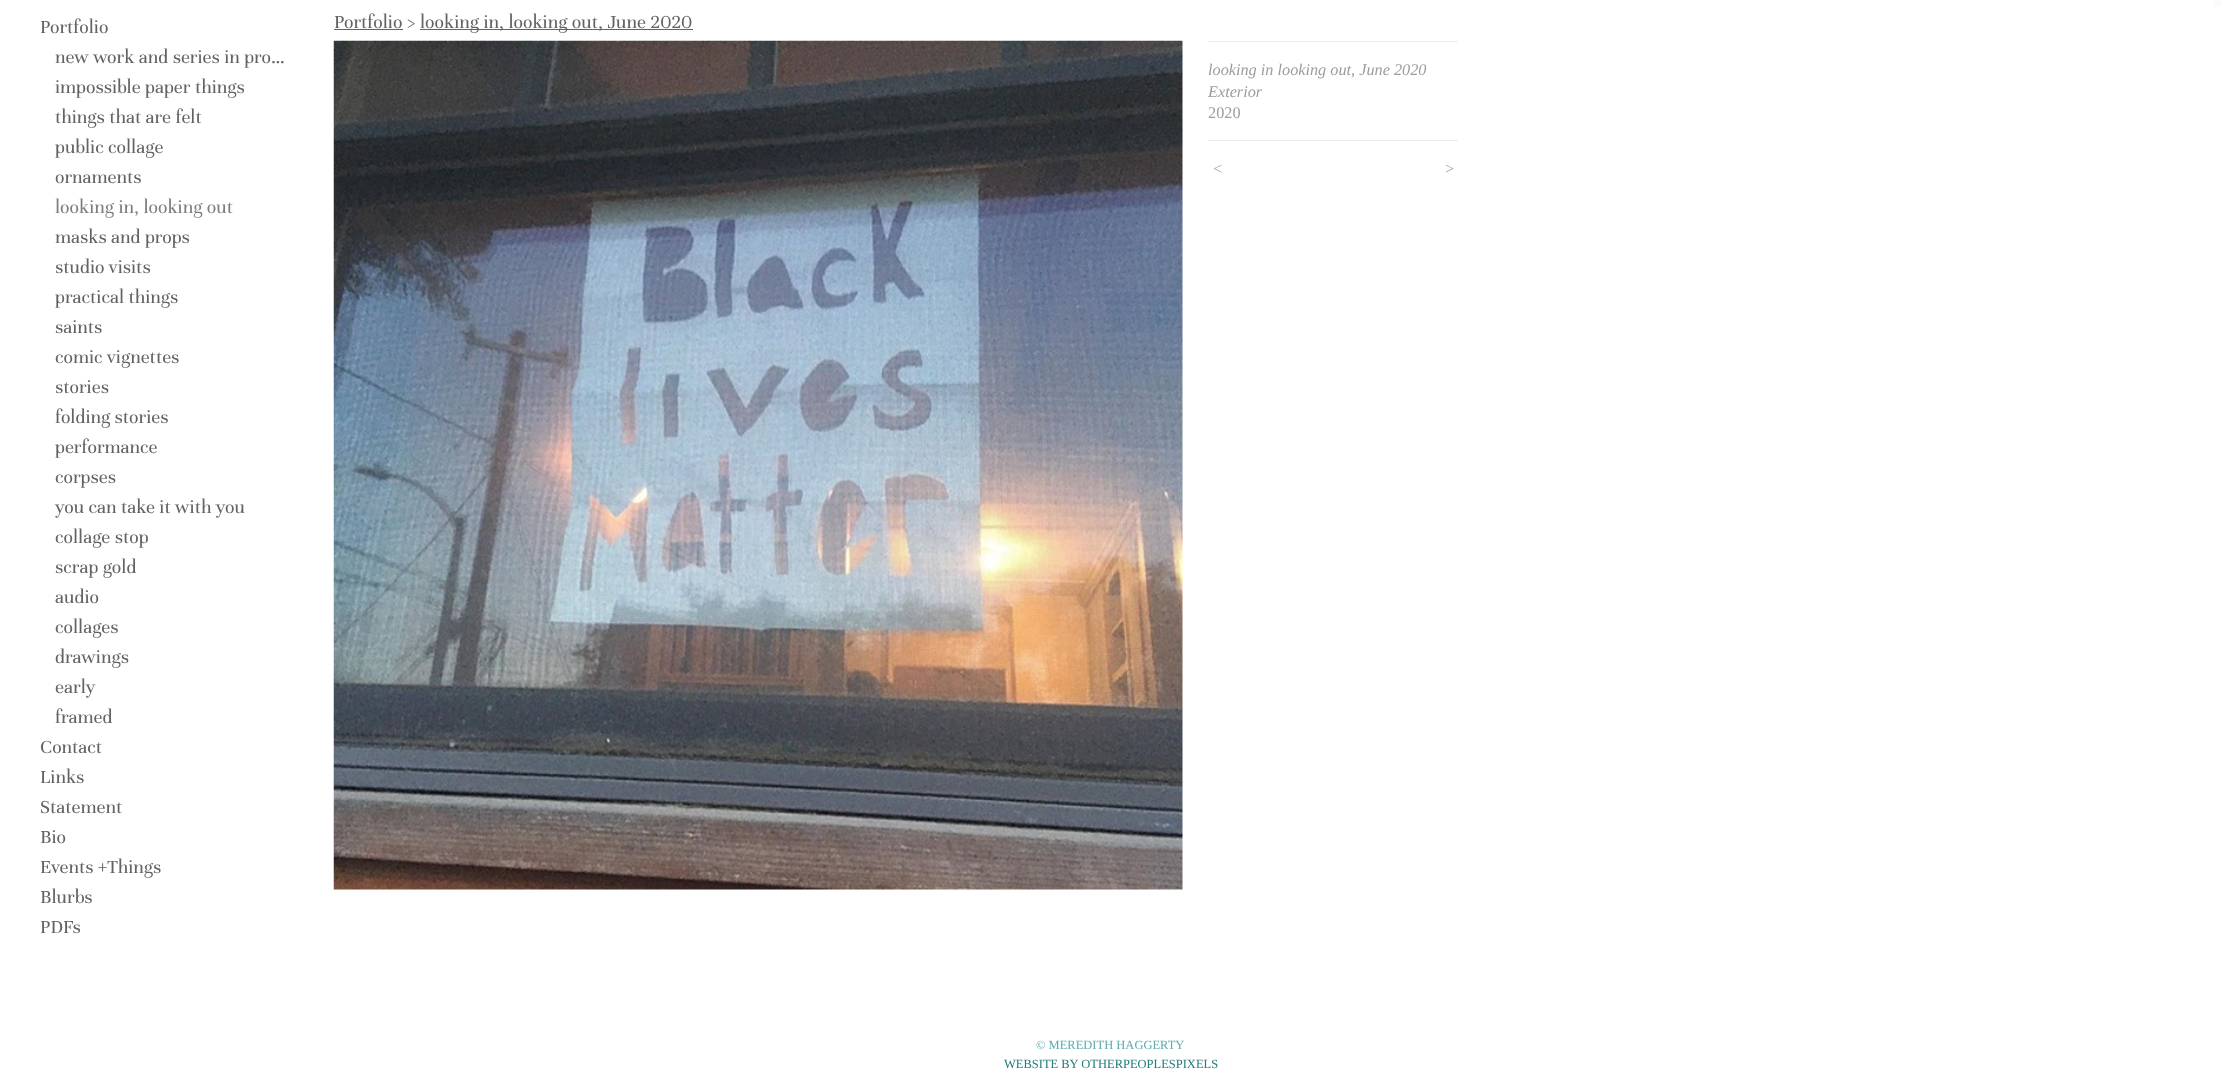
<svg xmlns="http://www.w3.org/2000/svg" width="2221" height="1088">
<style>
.a{font:20px Unna;fill:#636363}
.b{font:20px Unna;fill:#7d7d7d}
.c{font:italic 16.25px Liberation Serif;fill:#9c9c9c}
.d{font:16.25px Liberation Serif;fill:#9c9c9c}
.e{font:italic 16.25px Liberation Serif;letter-spacing:1px;fill:#9c9c9c}
.f{font:12.5px Liberation Serif;fill:#5dabac}
.g{font:12.5px Liberation Serif;fill:#1e7a7b}
</style>
<rect width="100%" height="100%" fill="#fff"/>
<path fill="#fafafa" d="M2214 0h7v7H2214z"/>
<path fill="#636363" d="M334 29h69v1H334z"/>
<path fill="#636363" d="M420 29h273v1H420z"/>
<image href="1.png" x="333" y="40" width="850" height="850"/>
<path fill="#ebebeb" d="M1208 41h250v1H1208z"/>
<path fill="#ebebeb" d="M1208 140h250v1H1208z"/>
<text class="a" x="40" y="33">Portfolio</text>
<text class="a" x="55" y="63">new work and series in pro…</text>
<text class="a" x="55" y="93">impossible paper things</text>
<text class="a" x="55" y="123">things that are felt</text>
<text class="a" x="55" y="153">public collage</text>
<text class="a" x="55" y="183">ornaments</text>
<text class="b" x="55" y="213">looking in, looking out</text>
<text class="a" x="55" y="243">masks and props</text>
<text class="a" x="55" y="273">studio visits</text>
<text class="a" x="55" y="303">practical things</text>
<text class="a" x="55" y="333">saints</text>
<text class="a" x="55" y="363">comic vignettes</text>
<text class="a" x="55" y="393">stories</text>
<text class="a" x="55" y="423">folding stories</text>
<text class="a" x="55" y="453">performance</text>
<text class="a" x="55" y="483">corpses</text>
<text class="a" x="55" y="513">you can take it with you</text>
<text class="a" x="55" y="543">collage stop</text>
<text class="a" x="55" y="573">scrap gold</text>
<text class="a" x="55" y="603">audio</text>
<text class="a" x="55" y="633">collages</text>
<text class="a" x="55" y="663">drawings</text>
<text class="a" x="55" y="693">early</text>
<text class="a" x="55" y="723">framed</text>
<text class="a" x="40" y="753">Contact</text>
<text class="a" x="40" y="783">Links</text>
<text class="a" x="40" y="813">Statement</text>
<text class="a" x="40" y="843">Bio</text>
<text class="a" x="40" y="873">Events +Things</text>
<text class="a" x="40" y="903">Blurbs</text>
<text class="a" x="40" y="933">PDFs</text>
<text class="a" x="334" y="28">Portfolio &gt;</text>
<text class="a" x="420" y="28">looking in, looking out, June 2020</text>
<text class="c" x="1208" y="75">looking in looking out, June 2020</text>
<text class="c" x="1208" y="97">Exterior</text>
<text class="d" x="1208" y="118">2020</text>
<text class="e" x="1212" y="174">&lt;</text>
<text class="e" x="1444" y="174">&gt;</text>
<text class="f" x="1036" y="1049">© MEREDITH HAGGERTY</text>
<text class="g" x="1004" y="1068">WEBSITE BY OTHERPEOPLESPIXELS</text>
</svg>
